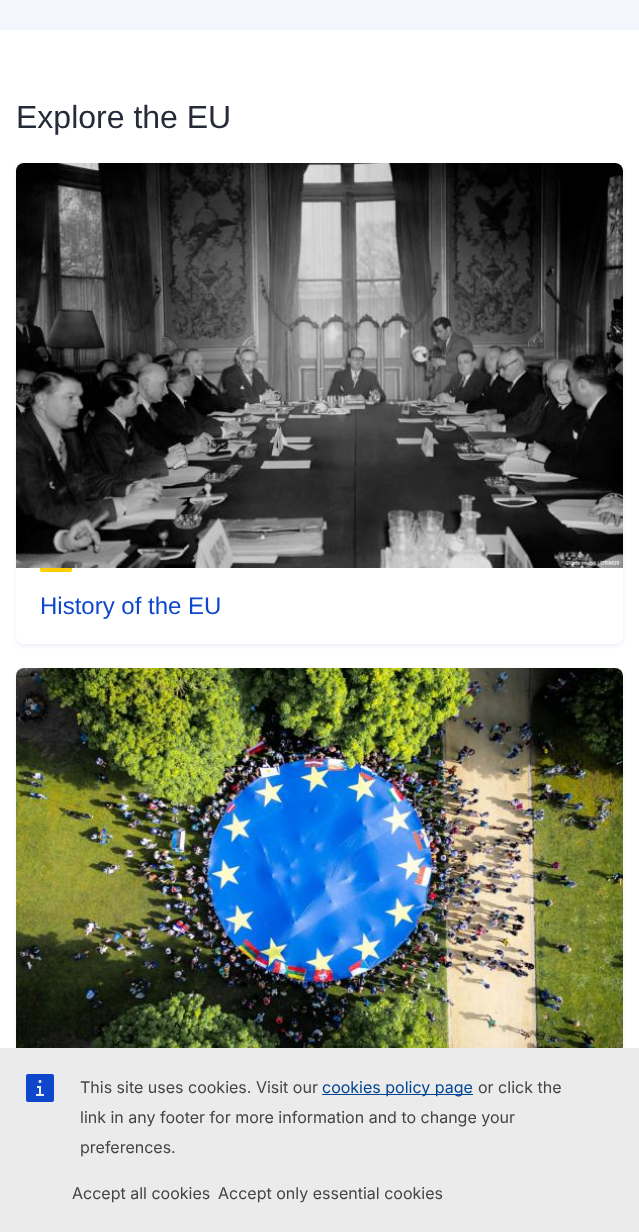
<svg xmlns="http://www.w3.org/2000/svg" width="639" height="1232">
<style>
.a{font:32px Liberation Sans;fill:#262b38}
.b{font:24px Liberation Sans;fill:#0e47cb}
.c{font:16px Inter;fill:#444}
.d{font:16px Inter;fill:#004494}
</style>
<rect width="100%" height="100%" fill="#fff"/>
<path fill="#f3f6fc" d="M0 0h639v30H0z"/>
<rect fill="#09318e14" filter="blur(2px)" x="16" y="165" width="607" height="481" rx="8"/>
<rect fill="#fff" x="16" y="163" width="607" height="481" rx="8"/>
<image href="1.png" x="16" y="163" width="607" height="405"/>
<path fill="#fc0" d="M40 568h32v2c0 1-1 2-2 2h-28c-1 0-2-1-2-2z"/>
<rect fill="#09318e14" filter="blur(2px)" x="16" y="670" width="607" height="480" rx="8"/>
<image href="2.png" x="16" y="668" width="607" height="380"/>
<path fill="#ebebeb" d="M0 1048h639v184H0z"/>
<image href="3.png" x="26" y="1074" width="28" height="28"/>
<path fill="#004494" d="M322 1094h151v1H322z"/>
<text class="a" x="16" y="128">Explore the EU</text>
<text class="b" x="40" y="614">History of the EU</text>
<text class="c" x="80" y="1093">This site uses cookies. Visit our</text>
<text class="d" x="322" y="1093">cookies policy page</text>
<text class="c" x="478" y="1093">or click the</text>
<text class="c" x="80" y="1123">link in any footer for more information and to change your</text>
<text class="c" x="80" y="1153">preferences.</text>
<text class="c" x="72" y="1199">Accept all cookies</text>
<text class="c" x="218" y="1199">Accept only essential cookies</text>
</svg>
